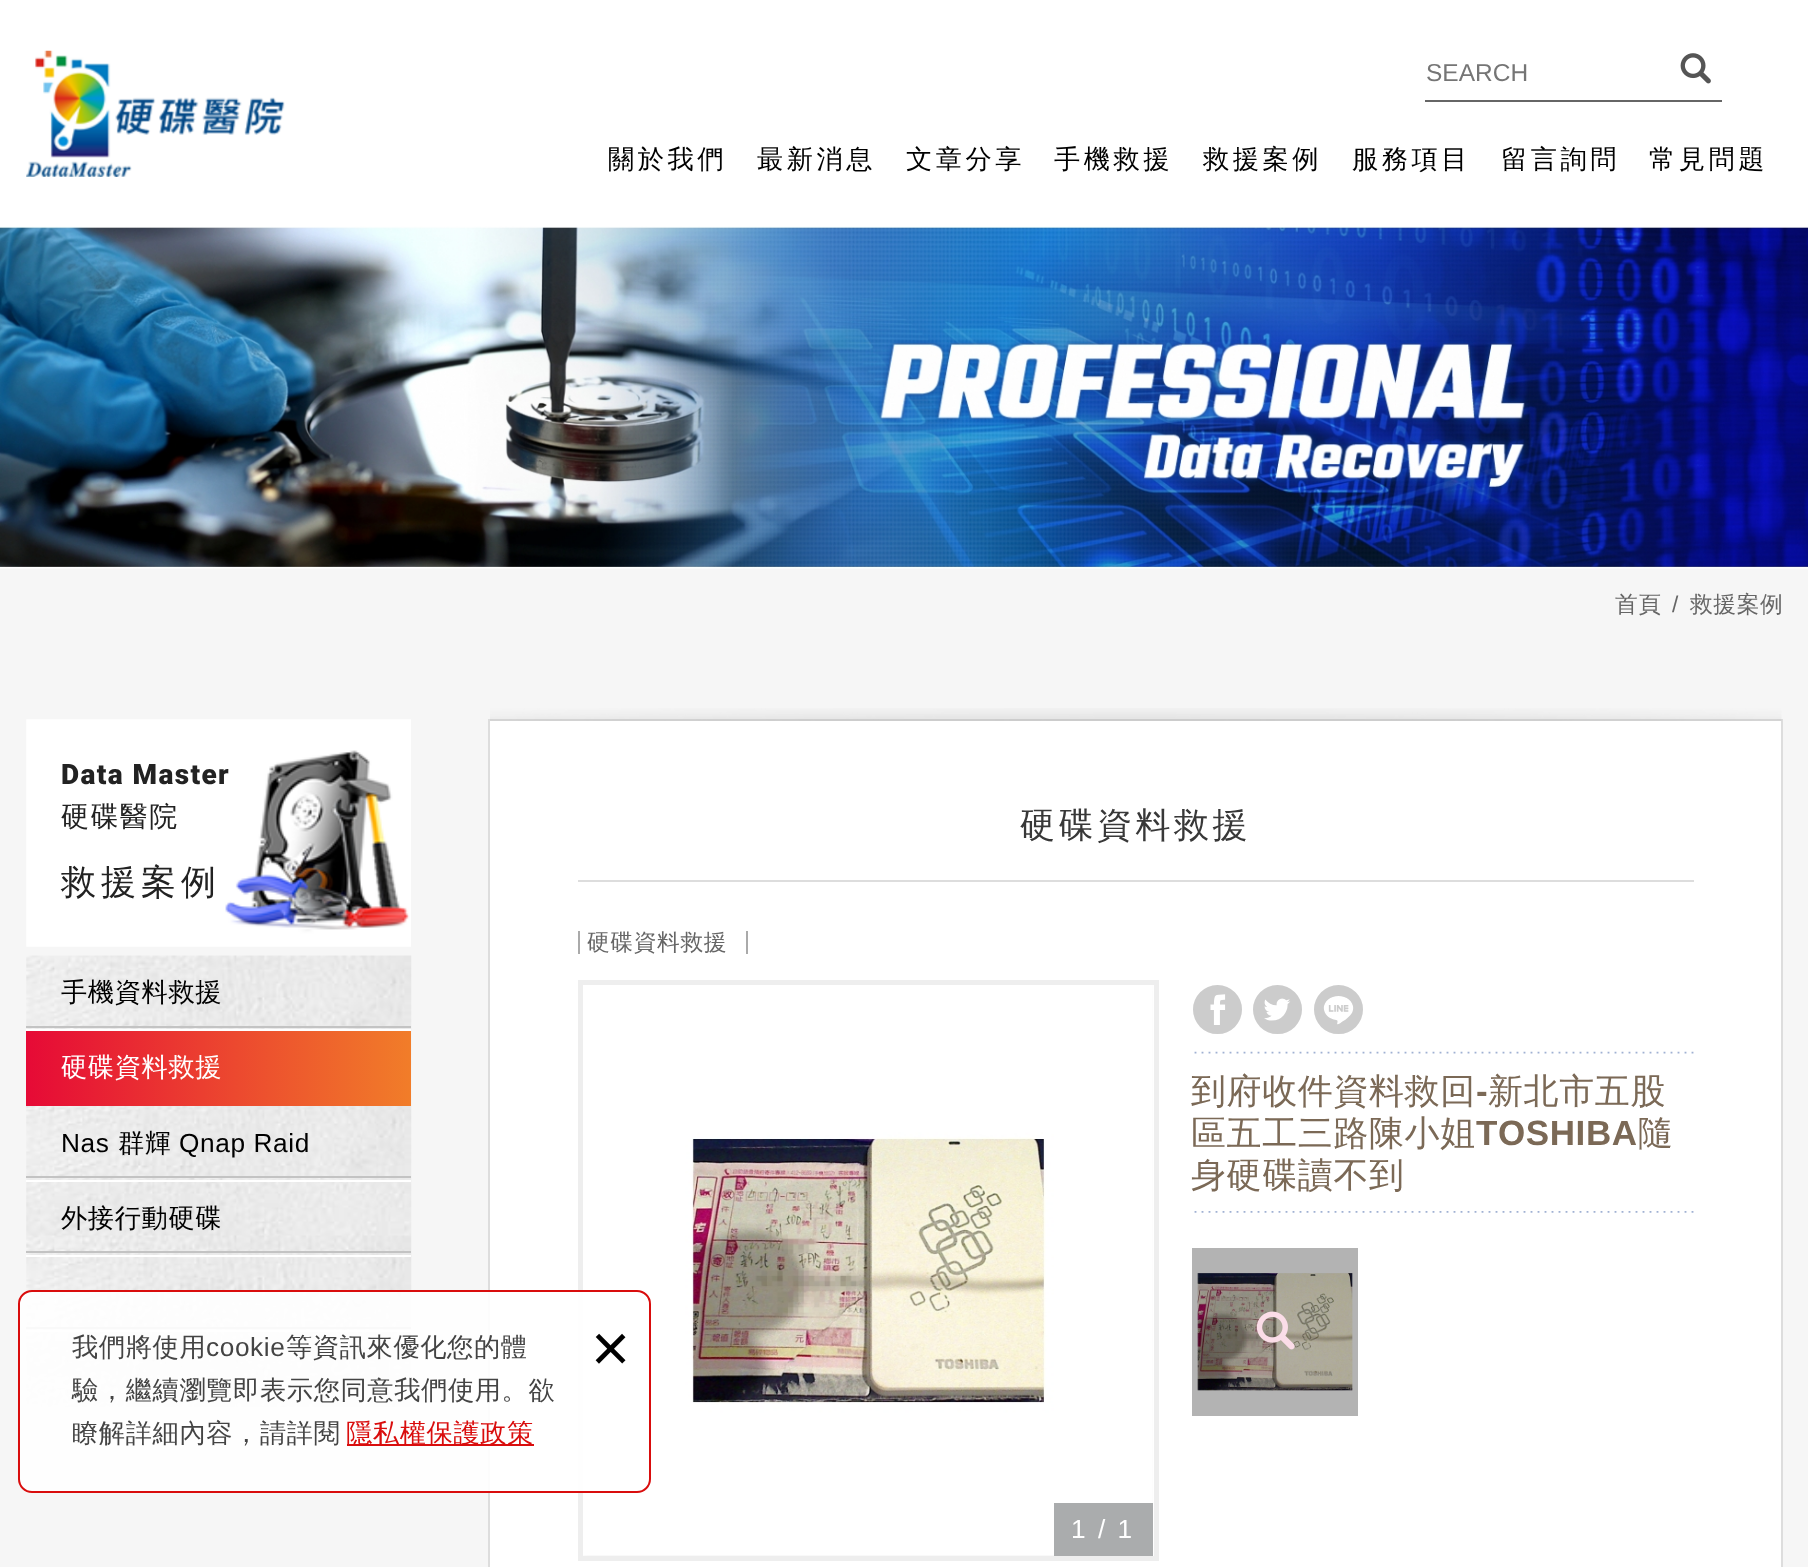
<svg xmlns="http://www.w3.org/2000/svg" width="1808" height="1567">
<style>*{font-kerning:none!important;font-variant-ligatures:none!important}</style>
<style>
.a{font:24.5px Liberation Sans;fill:#757575}
.b{font:500 26.25px WenQuanYi Zen Hei;letter-spacing:3.5px;fill:#000}
.c{font:500 26.25px WenQuanYi Zen Hei;letter-spacing:0.6px;fill:#444}
.d{font:26.25px Liberation Sans;letter-spacing:0.6px;fill:#444}
.e{font:500 26.25px WenQuanYi Zen Hei;letter-spacing:0.6px;fill:#d90d0d}
.f{font:67px Liberation Sans;fill:#000}
.g{font:500 22.75px WenQuanYi Zen Hei;letter-spacing:0.6px;fill:#666}
.h{font:22.75px Liberation Sans;letter-spacing:0.6px;fill:#666}
.i{font:900 28px Roboto;letter-spacing:1.4px;fill:#222}
.j{font:500 28px WenQuanYi Zen Hei;letter-spacing:1.4px;fill:#222}
.k{font:500 35px WenQuanYi Zen Hei;letter-spacing:5px;fill:#222}
.l{font:500 26.25px WenQuanYi Zen Hei;letter-spacing:0.6px;fill:#000}
.m{font:500 26.25px WenQuanYi Zen Hei;letter-spacing:0.6px;fill:#fff}
.n{font:26.25px Liberation Sans;letter-spacing:0.6px;fill:#000}
.o{font:500 35px WenQuanYi Zen Hei;letter-spacing:3.5px;fill:#383838}
.p{font:49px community;letter-spacing:2px;fill:#ccc}
.q{font:500 35px WenQuanYi Zen Hei;letter-spacing:0.6px;fill:#7b6956}
.r{font:bold 35px Liberation Sans;letter-spacing:0.6px;fill:#7b6956}
.s{font:26.25px Liberation Sans;letter-spacing:2.5px;fill:#fff}
</style>
<defs>
<clipPath id="clip1"><path d="M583 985h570v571H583z"/></clipPath>
<linearGradient id="g1" gradientUnits="userSpaceOnUse" x1="26" y1="1068" x2="411" y2="1068"><stop offset="0" stop-color="#e60a36"/><stop offset="1" stop-color="#f17d29"/></linearGradient>
</defs>
<rect width="100%" height="100%" fill="#f6f6f6"/>
<path fill="#fff" d="M0 0h1808v226H0z"/>
<image href="1.png" x="26" y="50" width="259" height="127"/>
<path fill="#666" d="M1425 100h297v2H1425z"/>
<image href="2.png" x="1680" y="53" width="31" height="31"/>
<image href="5.png" x="26" y="955" width="386" height="452"/>
<path fill="#fff" d="M26 1330h385v2H26z"/>
<path fill="#c3c3c3" d="M26 1327h385v2H26z"/>
<path fill="#fff" d="M490 721h1291v846H490z"/>
<path fill="#b3b3b3" d="M1192 1248h166v168H1192z"/>
<path fill="none" stroke="#ddd" stroke-width="2" d="M489 720h1293v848H489z"/>
<path fill="none" stroke="#eee" stroke-width="5" d="M580.5 982.5h576v576H580.5z"/>
<g clip-path="url(#clip1)">
<path fill="#00000040" filter="blur(3.5px)" d="M583 985h570v571H583z"/>
</g>
<image href="10.png" x="583" y="985" width="570" height="571"/>
<rect fill="#ffffffe6" stroke="#d90d0d" stroke-width="2" x="19" y="1291" width="631" height="201" rx="13"/>
<path fill="#d90d0d" d="M347 1444h187v2H347z"/>
<image href="3.png" x="0" y="226" width="1808" height="343"/>
<image href="4.png" x="26" y="719" width="385" height="228"/>
<path fill="#fff" d="M26 1029h385v2H26z"/>
<path fill="#c3c3c3" d="M26 1026h385v2H26z"/>
<path fill="url(#g1)" d="M26 1031h385v75H26z"/>
<path fill="#fff" d="M26 1180h385v2H26z"/>
<path fill="#c3c3c3" d="M26 1176h385v2H26z"/>
<path fill="#fff" d="M26 1255h385v2H26z"/>
<path fill="#c3c3c3" d="M26 1251h385v2H26z"/>
<image href="6.png" x="490" y="708" width="1292" height="13"/>
<path fill="#ddd" d="M578 880h1116v2H578z"/>
<path fill="#aaa" d="M746 931h2v23H746z"/>
<path fill="#aaa" d="M578 931h2v23H578z"/>
<image href="7.png" x="1194" y="1051" width="500" height="162"/>
<image href="8.png" x="1197" y="1273" width="156" height="118"/>
<image href="9.png" x="1256" y="1311" width="39" height="39"/>
<path fill="#aaacad" d="M1054 1503h99v53H1054z"/>
<text class="a" x="1426" y="81">SEARCH</text>
<text class="b" x="608" y="168">關於我們</text>
<text class="b" x="757" y="168">最新消息</text>
<text class="b" x="906" y="168">文章分享</text>
<text class="b" x="1054" y="168">手機救援</text>
<text class="b" x="1203" y="168">救援案例</text>
<text class="b" x="1352" y="168">服務項目</text>
<text class="b" x="1501" y="168">留言詢問</text>
<text class="b" x="1649" y="168">常見問題</text>
<text class="c" x="72" y="1356">我們將使用</text>
<text class="d" x="206" y="1356">cookie</text>
<text class="c" x="286" y="1356">等資訊來優化您的體</text>
<text class="c" x="72" y="1399">驗，繼續瀏覽即表示您同意我們使用。欲</text>
<text class="c" x="72" y="1442">瞭解詳細內容，請詳閱</text>
<text class="e" x="346" y="1442">隱私權保護政策</text>
<text class="f" x="591" y="1371">×</text>
<text class="g" x="1615" y="612">首頁</text>
<text class="h" x="1672" y="612">/</text>
<text class="g" x="1690" y="612">救援案例</text>
<text class="i" x="61" y="784">Data Master</text>
<text class="j" x="61" y="826">硬碟醫院</text>
<text class="k" x="61" y="894">救援案例</text>
<text class="l" x="61" y="1001">手機資料救援</text>
<text class="m" x="61" y="1076">硬碟資料救援</text>
<text class="n" x="61" y="1152">Nas</text>
<text class="l" x="118" y="1152">群輝</text>
<text class="n" x="179" y="1152">Qnap Raid</text>
<text class="l" x="61" y="1227">外接行動硬碟</text>
<text class="o" x="1020" y="837">硬碟資料救援</text>
<text class="g" x="587" y="950">硬碟資料救援</text>
<text class="p" x="1193" y="1031">󢀇</text>
<text class="p" x="1253" y="1031">󢀔</text>
<text class="p" x="1314" y="1031">󢀐</text>
<text class="q" x="1191" y="1103">到府收件資料救回</text>
<text class="r" x="1476" y="1103">-</text>
<text class="q" x="1488" y="1103">新北市五股</text>
<text class="q" x="1191" y="1145">區五工三路陳小姐</text>
<text class="r" x="1476" y="1145">TOSHIBA</text>
<text class="q" x="1638" y="1145">隨</text>
<text class="q" x="1191" y="1187">身硬碟讀不到</text>
<text class="s" x="1071" y="1538">1 / 1</text>
</svg>
